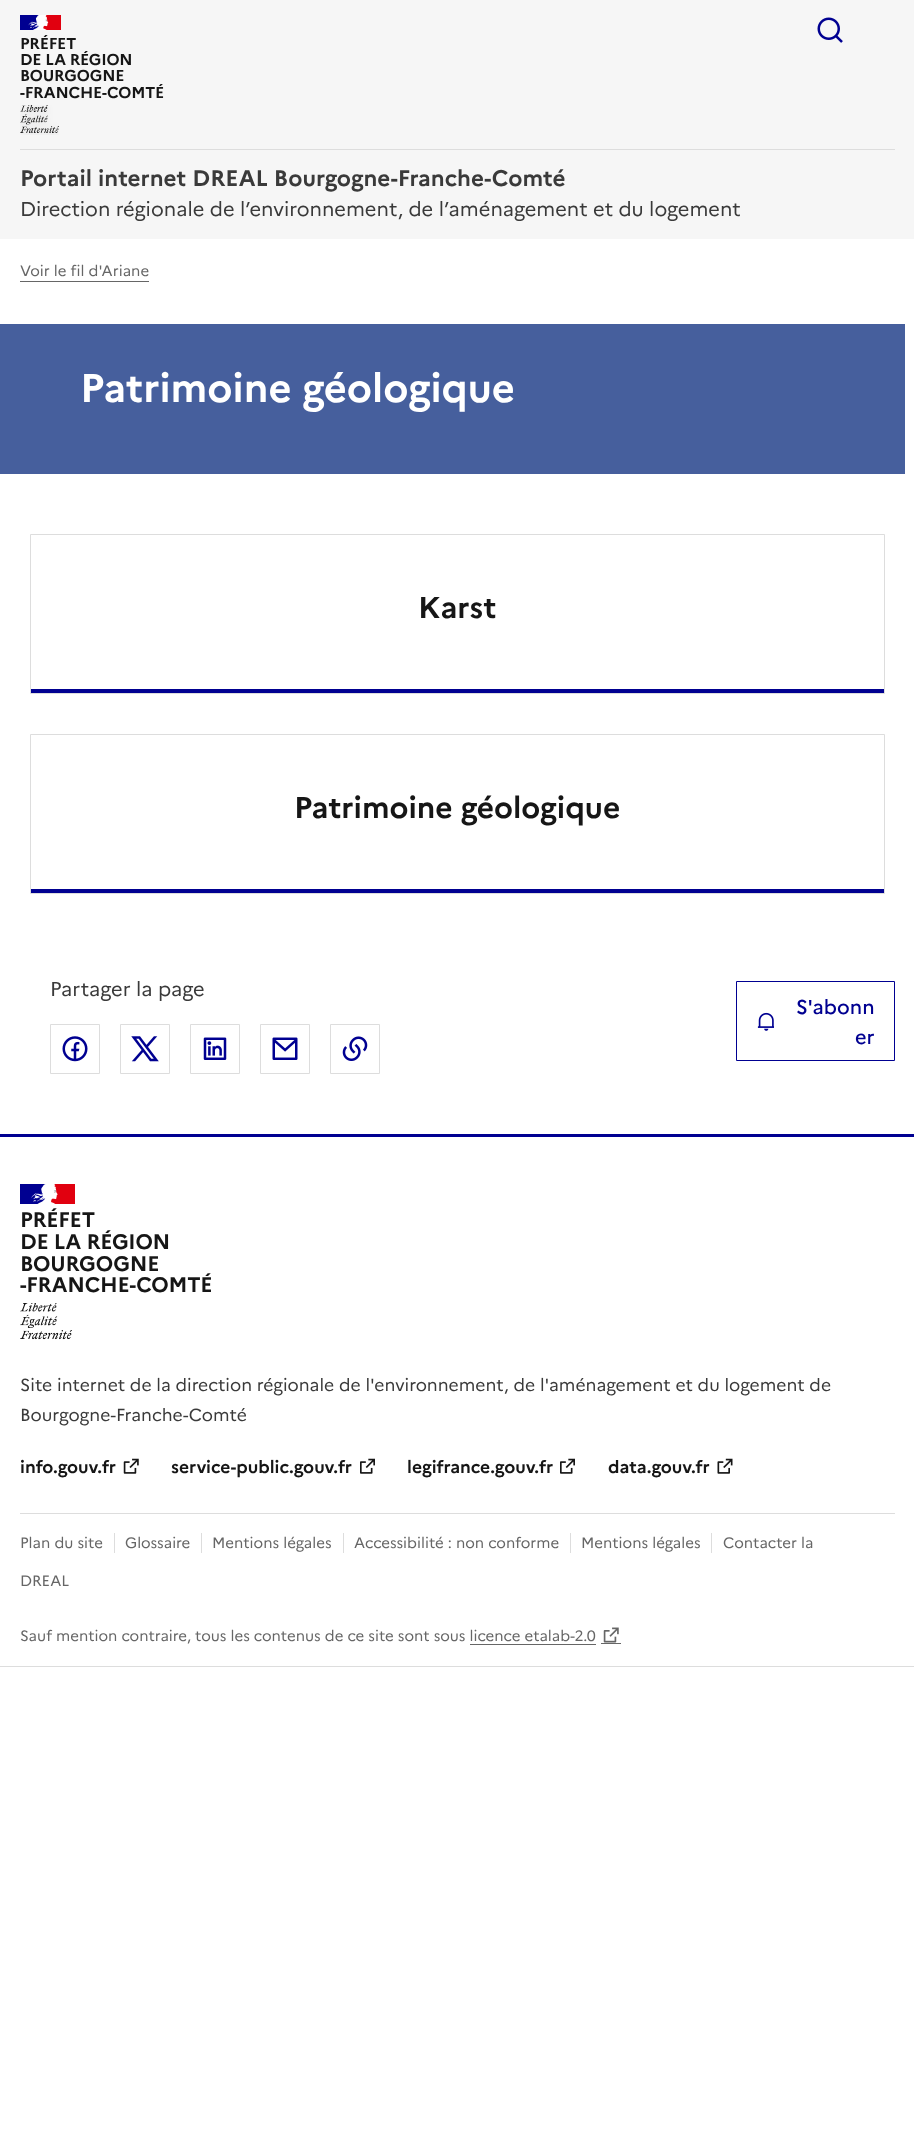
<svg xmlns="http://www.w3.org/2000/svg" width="914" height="2136">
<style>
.a{font:bold 15.75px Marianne;letter-spacing:-0.2px;fill:#161616}
.b{font:bold 22.5px Marianne;fill:#3a3a3a}
.c{font:20px Marianne;fill:#3a3a3a}
.d{font:15px Marianne;fill:#666}
.e{font:bold 40px Marianne;fill:#fff}
.f{font:bold 30px Marianne;fill:#161616}
.g{font:500 20px Marianne;fill:#000091}
.h{font:bold 21px Marianne;letter-spacing:-0.25px;fill:#161616}
.i{font:17.5px Marianne;fill:#3a3a3a}
.j{font:bold 17.5px Marianne;fill:#161616}
</style>
<rect width="100%" height="100%" fill="#fff"/>
<path fill="#f6f6f6" d="M0 0h914v239H0z"/>
<image href="1.png" x="817" y="17" width="26" height="26"/>
<path fill="#000091" d="M20 15h19v15H20z"/>
<path fill="#e1000f" d="M43 15h18v15H43z"/>
<image href="2.png" x="28" y="15" width="21" height="15"/>
<image href="3.png" x="20" y="105" width="39" height="30"/>
<path fill="#ddd" d="M20 149h875v1H20z"/>
<path fill="#666" d="M20 281h129v1H20z"/>
<path fill="#465f9d" d="M0 324h905v150H0z"/>
<path fill="#000091" d="M30 689h855v4H30z"/>
<path fill="none" stroke="#ddd" d="M30.5 534.5h854v159H30.5z"/>
<path fill="#000091" d="M30 889h855v4H30z"/>
<path fill="none" stroke="#ddd" d="M30.5 734.5h854v159H30.5z"/>
<path fill="none" stroke="#ddd" d="M50.5 1024.5h49v49H50.5z"/>
<image href="4.png" x="62" y="1036" width="26" height="26"/>
<path fill="none" stroke="#ddd" d="M120.5 1024.5h49v49H120.5z"/>
<image href="5.png" x="131" y="1036" width="28" height="26"/>
<path fill="none" stroke="#ddd" d="M190.5 1024.5h49v49H190.5z"/>
<image href="6.png" x="203" y="1037" width="24" height="23"/>
<path fill="none" stroke="#ddd" d="M260.5 1024.5h49v49H260.5z"/>
<image href="7.png" x="272" y="1037" width="26" height="23"/>
<path fill="none" stroke="#ddd" d="M330.5 1024.5h49v49H330.5z"/>
<image href="8.png" x="342" y="1036" width="26" height="25"/>
<path fill="none" stroke="#000091" d="M736.5 981.5h158v79H736.5z"/>
<image href="9.png" x="757" y="1012" width="17" height="19"/>
<path fill="#ddd" d="M0 1666h914v1H0z"/>
<path fill="#000091" d="M0 1134h914v3H0z"/>
<path fill="#000091" d="M20 1184h26v20H20z"/>
<path fill="#e1000f" d="M51 1184h24v20H51z"/>
<image href="10.png" x="31" y="1184" width="27" height="20"/>
<image href="11.png" x="20" y="1303" width="52" height="37"/>
<image href="12.png" x="123" y="1458" width="16" height="16"/>
<image href="13.png" x="360" y="1458" width="15" height="16"/>
<image href="13.png" x="560" y="1458" width="15" height="16"/>
<image href="14.png" x="717" y="1458" width="16" height="16"/>
<path fill="#ddd" d="M20 1513h875v1H20z"/>
<path fill="#ddd" d="M711 1533h1v20H711z"/>
<path fill="#ddd" d="M114 1533h1v20H114z"/>
<path fill="#ddd" d="M201 1533h1v20H201z"/>
<path fill="#ddd" d="M343 1533h1v20H343z"/>
<path fill="#ddd" d="M570 1533h1v20H570z"/>
<path fill="#666" d="M470 1644h126v1H470z"/>
<path fill="#666" d="M601 1643h20v1H601z"/>
<image href="15.png" x="603" y="1627" width="16" height="16"/>
<text class="a" x="20" y="49">PRÉFET</text>
<text class="a" x="20" y="65">DE LA RÉGION</text>
<text class="a" x="20" y="81">BOURGOGNE</text>
<text class="a" x="20" y="98">-FRANCHE-COMTÉ</text>
<text class="b" x="20" y="186">Portail internet DREAL Bourgogne-Franche-Comté</text>
<text class="c" x="20" y="216">Direction régionale de l’environnement, de l’aménagement et du logement</text>
<text class="d" x="20" y="276">Voir le fil d'Ariane</text>
<text class="e" x="80" y="402">Patrimoine géologique</text>
<text class="f" x="418" y="618">Karst</text>
<text class="f" x="294" y="818">Patrimoine géologique</text>
<text class="c" x="50" y="996">Partager la page</text>
<text class="g" x="796" y="1014">S'abonn</text>
<text class="g" x="855" y="1044">er</text>
<text class="h" x="20" y="1227">PRÉFET</text>
<text class="h" x="20" y="1249">DE LA RÉGION</text>
<text class="h" x="20" y="1271">BOURGOGNE</text>
<text class="h" x="20" y="1292">-FRANCHE-COMTÉ</text>
<text class="i" x="20" y="1391">Site internet de la direction régionale de l'environnement, de l'aménagement et du logement de</text>
<text class="i" x="20" y="1421">Bourgogne-Franche-Comté</text>
<text class="j" x="20" y="1473">info.gouv.fr</text>
<text class="j" x="171" y="1473">service-public.gouv.fr</text>
<text class="j" x="407" y="1473">legifrance.gouv.fr</text>
<text class="j" x="608" y="1473">data.gouv.fr</text>
<text class="d" x="20" y="1548">Plan du site</text>
<text class="d" x="723" y="1548">Contacter la</text>
<text class="d" x="20" y="1586">DREAL</text>
<text class="d" x="125" y="1548">Glossaire</text>
<text class="d" x="212" y="1548">Mentions légales</text>
<text class="d" x="354" y="1548">Accessibilité : non conforme</text>
<text class="d" x="581" y="1548">Mentions légales</text>
<text class="d" x="20" y="1641">Sauf mention contraire, tous les contenus de ce site sont sous licence etalab-2.0</text>
</svg>
